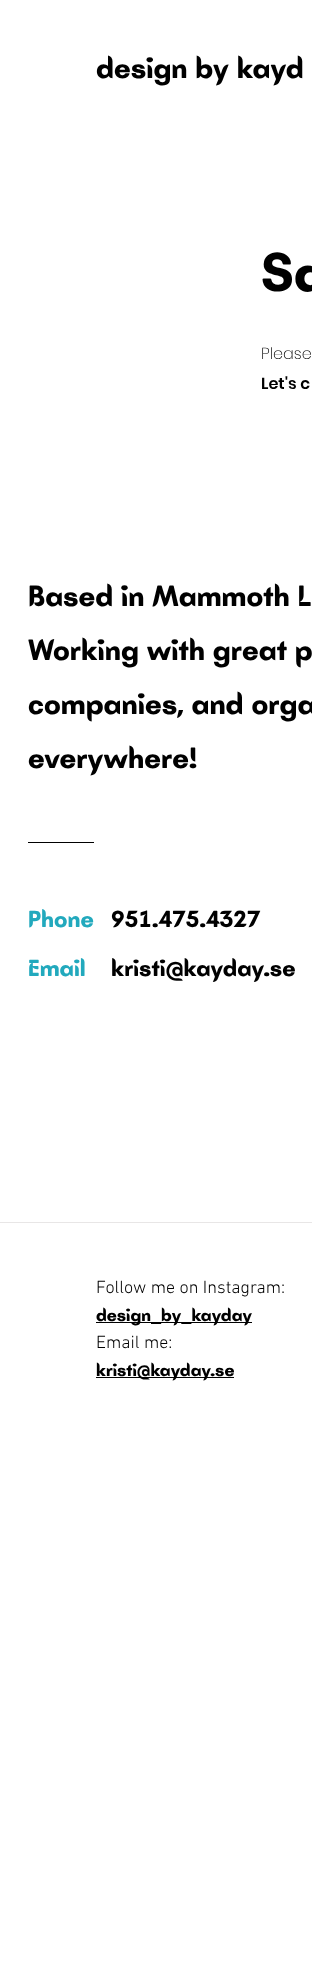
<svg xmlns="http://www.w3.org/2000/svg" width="312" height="1988">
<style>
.a{font:bold 30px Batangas;fill:#000}
.b{font:bold 56px Batangas;fill:#000}
.c{font:200 16px Poppins;fill:#000}
.d{font:600 16px Poppins;fill:#000}
.e{font:bold 24px Batangas;fill:#22a9bd}
.f{font:bold 24px Batangas;fill:#000}
.g{font:300 18px 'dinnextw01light';fill:#000}
.h{font:bold 18px Batangas;fill:#000}
</style>
<rect width="100%" height="100%" fill="#fff"/>
<path fill="#000" d="M28 842h66v1H28z"/>
<path fill="#e8e6e6" d="M0 1222h312v1H0z"/>
<path fill="#000" d="M96 1322h156v1H96z"/>
<path fill="#000" d="M96 1377h138v1H96z"/>
<text class="a" x="96" y="78">design by kayd</text>
<text class="b" x="261" y="291">Sa</text>
<text class="c" x="261" y="359">Please</text>
<text class="d" x="261" y="389">Let's c</text>
<text class="a" x="28" y="606">Based in Mammoth L</text>
<text class="a" x="28" y="660">Working with great p</text>
<text class="a" x="28" y="714">companies, and orga</text>
<text class="a" x="28" y="768">everywhere!</text>
<text class="e" x="28" y="927">Phone</text>
<text class="f" x="111" y="927">951.475.4327</text>
<text class="e" x="28" y="976">Email</text>
<text class="f" x="111" y="976">kristi@kayday.se</text>
<text class="g" x="96" y="1293">Follow me on Instagram:</text>
<text class="h" x="96" y="1321">design_by_kayday</text>
<text class="g" x="96" y="1348">Email me:</text>
<text class="h" x="96" y="1376">kristi@kayday.se</text>
</svg>
